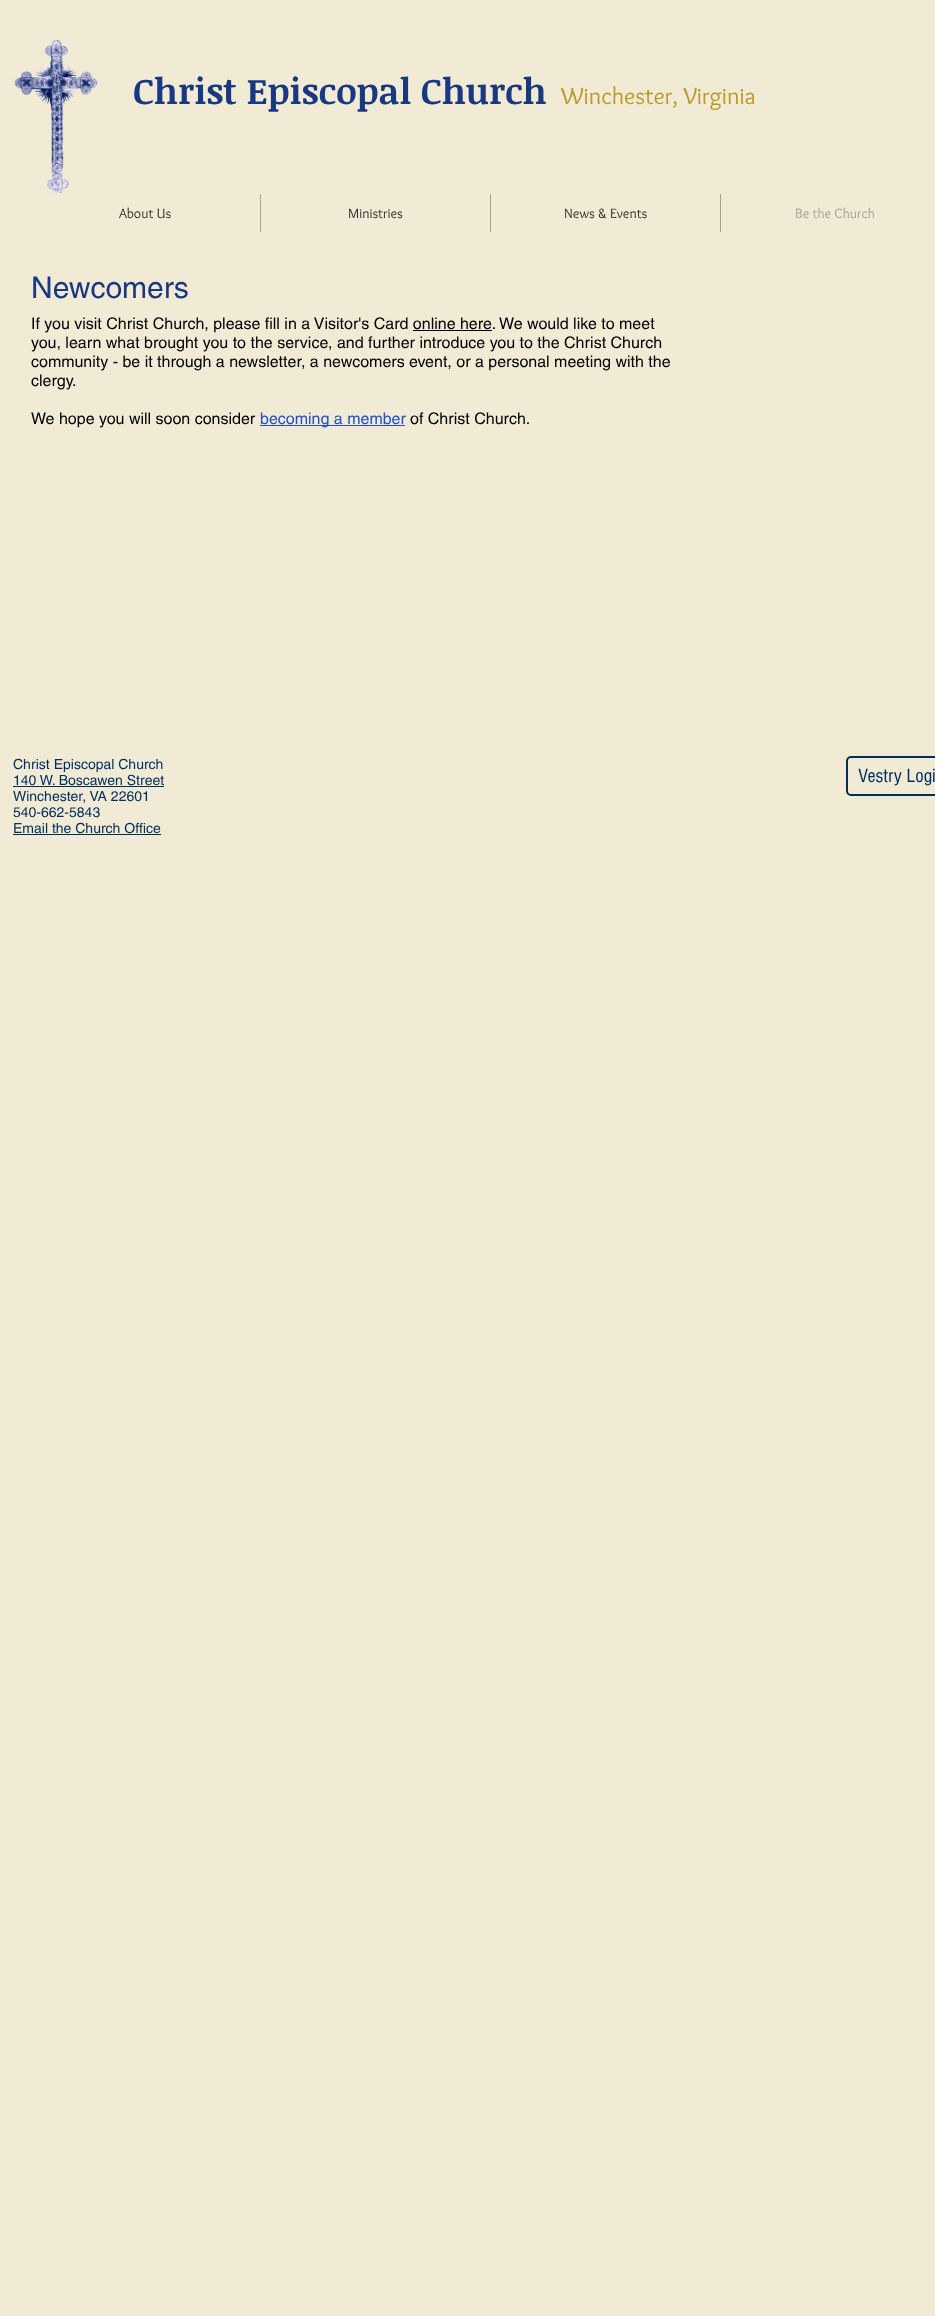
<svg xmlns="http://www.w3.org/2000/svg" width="935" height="2316">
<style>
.a{font:bold 36px Noticia Text;fill:#183981}
.b{font:24px Overlock;fill:#bc9925}
.c{font:14px Overlock;fill:#2f2e2e}
.d{font:14px Overlock;fill:#a0a09f}
.e{font:30px helvetica;fill:#183981}
.f{font:16px helvetica;fill:#000}
.g{font:16px helvetica;fill:#224eca}
.h{font:14px helvetica;fill:#002e5d}
.i{font:20px 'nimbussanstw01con';fill:#002e5d}
</style>
<rect width="100%" height="100%" fill="#f1ebd5"/>
<image href="1.png" x="14" y="40" width="84" height="153"/>
<path fill="#ada284" d="M260 194h1v38H260z"/>
<path fill="#ada284" d="M490 194h1v38H490z"/>
<path fill="#ada284" d="M720 194h1v38H720z"/>
<path fill="#000" d="M413 330h79v1H413z"/>
<path fill="#224eca" d="M260 425h145v1H260z"/>
<path fill="#002e5d" d="M13 786h151v1H13z"/>
<path fill="#002e5d" d="M13 834h148v1H13z"/>
<rect fill="none" stroke="#002e5d" stroke-width="2" x="847" y="757" width="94" height="38" rx="4"/>
<text class="a" x="133" y="104">Christ Episcopal Church</text>
<text class="b" x="561" y="104">Winchester, Virginia</text>
<text class="c" x="119" y="218">About Us</text>
<text class="c" x="348" y="218">Ministries</text>
<text class="c" x="564" y="218">News &amp; Events</text>
<text class="d" x="795" y="218">Be the Church</text>
<text class="e" x="31" y="298">Newcomers</text>
<text class="f" x="31" y="329">If you visit Christ Church, please fill in a Visitor's Card online here. We would like to meet</text>
<text class="f" x="31" y="348">you, learn what brought you to the service, and further introduce you to the Christ Church</text>
<text class="f" x="31" y="367">community - be it through a newsletter, a newcomers event, or a personal meeting with the</text>
<text class="f" x="31" y="386">clergy.</text>
<text class="f" x="31" y="424">We hope you will soon consider</text>
<text class="g" x="260" y="424">becoming a member</text>
<text class="f" x="410" y="424">of Christ Church.</text>
<text class="h" x="13" y="769">Christ Episcopal Church</text>
<text class="h" x="13" y="785">140 W. Boscawen Street</text>
<text class="h" x="13" y="801">Winchester, VA 22601</text>
<text class="h" x="13" y="817">540-662-5843</text>
<text class="h" x="13" y="833">Email the Church Office</text>
<text class="i" x="858" y="782">Vestry Logi</text>
</svg>
